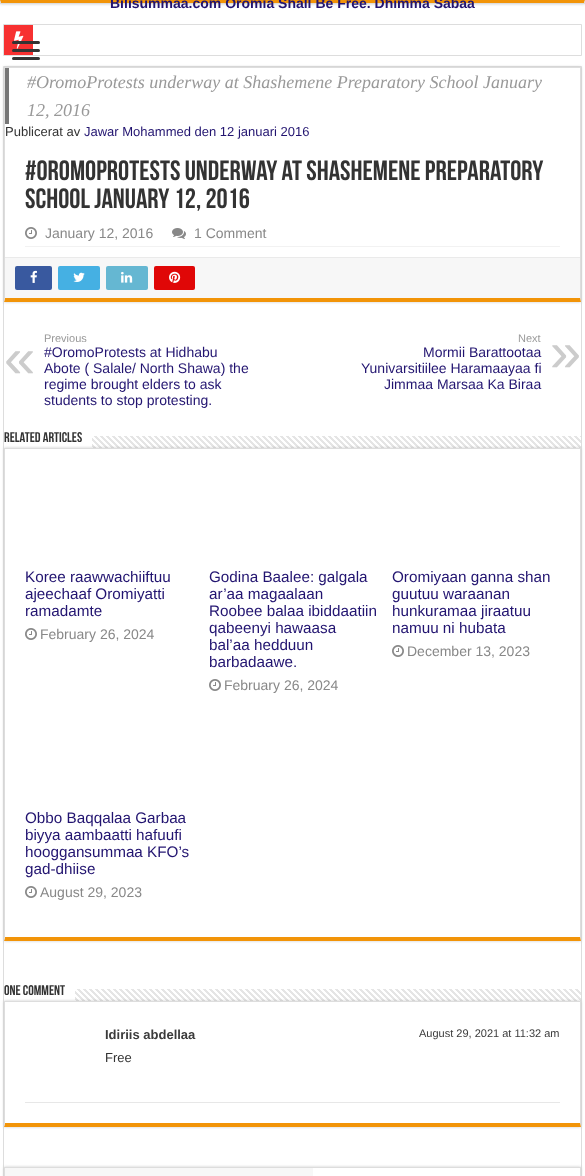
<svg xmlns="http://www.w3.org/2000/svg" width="585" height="1176">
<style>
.a{font:bold 14px Liberation Sans;fill:#221470}
.b{font:italic 18px Liberation Serif;fill:#999}
.c{font:13px Liberation Sans;fill:#333}
.d{font:13px Liberation Sans;fill:#221470}
.e{font:bold 28px Bebas Neue;fill:#333}
.f{font:14px Liberation Sans;fill:#888}
.g{font:11px Liberation Sans;fill:#999}
.h{font:56px Liberation Sans;fill:#ccc}
.i{font:14px Liberation Sans;fill:#221470}
.j{font:bold 14px Bebas Neue;fill:#333}
.k{font:15.25px Liberation Sans;fill:#221470}
.l{font:bold 13px Liberation Sans;fill:#3b3b3b}
.m{font:11px Liberation Sans;fill:#3b3b3b}
</style>
<defs>
<clipPath id="clip1"><path d="M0 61h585v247h-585zm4 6h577v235h-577z" clip-rule="evenodd"/></clipPath>
<clipPath id="clip2"><path d="M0 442h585v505h-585zm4 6h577v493h-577z" clip-rule="evenodd"/></clipPath>
<clipPath id="clip3"><path d="M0 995h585v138h-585zm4 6h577v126h-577z" clip-rule="evenodd"/></clipPath>
<clipPath id="clip4"><path d="M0 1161h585v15h-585zm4 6h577v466h-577z" clip-rule="evenodd"/></clipPath>
</defs>
<rect width="100%" height="100%" fill="#fff"/>
<path fill="#cacaca" filter="blur(1.5px)" d="M0 0h585v4H0z"/>
<path fill="#f29408" d="M0 0h585l-1 3h-583z"/>
<path fill="#ddd" d="M585 0v4l-1-1z"/>
<path fill="#ddd" d="M0 3h585v1H0z"/>
<path fill="#ddd" d="M0 4v-4l1 3z"/>
<path fill="none" stroke="#ddd" d="M3.5 24.5h578v31H3.5z"/>
<path fill="#f73131" d="M4 25h29v30H4z"/>
<image href="1.png" x="14" y="31" width="10" height="18"/>
<rect fill="#333" x="12" y="41" width="28" height="3" rx="1.5"/>
<rect fill="#333" x="12" y="49" width="28" height="3" rx="1.5"/>
<rect fill="#333" x="12" y="57" width="28" height="3" rx="1.5"/>
<path fill="none" stroke="#ddd" d="M3.5 66.5h578v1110H3.5z"/>
<g clip-path="url(#clip1)">
<path fill="#cacaca" filter="blur(1.5px)" d="M4 67h577v235H4z"/>
</g>
<path fill="#ddd" d="M4 67h577v1H4z"/>
<path fill="#ddd" d="M581 67v235l-1-4v-230z"/>
<path fill="#f29408" d="M581 302h-577l1-4h575z"/>
<path fill="#ddd" d="M4 302v-235l1 1v230z"/>
<path fill="#777" d="M5 68h4v56H5z"/>
<path fill="#f2f2f2" d="M25 246h535v1H25z"/>
<image href="2.png" x="25" y="227" width="12" height="12"/>
<image href="3.png" x="172" y="228" width="14" height="11"/>
<path fill="#f7f7f7" d="M5 258h575v40H5z"/>
<path fill="#eaeaea" d="M5 257h575v1H5z"/>
<rect fill="#39599f" x="15" y="266" width="37" height="24" rx="2"/>
<image href="4.png" x="30" y="270" width="7" height="13"/>
<rect fill="#45b0e3" x="58" y="266" width="42" height="24" rx="2"/>
<image href="5.png" x="73" y="272" width="12" height="10"/>
<rect fill="#65b7d2" x="106" y="266" width="42" height="24" rx="2"/>
<image href="6.png" x="121" y="271" width="12" height="12"/>
<rect fill="#e00707" x="154" y="266" width="41" height="24" rx="2"/>
<image href="7.png" x="169" y="271" width="12" height="12"/>
<g clip-path="url(#clip2)">
<path fill="#cacaca" filter="blur(1.5px)" d="M4 448h577v493H4z"/>
</g>
<image href="8.png" x="92" y="436" width="489" height="12"/>
<path fill="#ddd" d="M4 448h577v1H4z"/>
<path fill="#ddd" d="M581 448v493l-1-4v-488z"/>
<path fill="#f29408" d="M581 941h-577l1-4h575z"/>
<path fill="#ddd" d="M4 941v-493l1 1v488z"/>
<image href="2.png" x="25" y="628" width="12" height="12"/>
<image href="2.png" x="209" y="679" width="12" height="12"/>
<image href="2.png" x="392" y="645" width="12" height="12"/>
<image href="2.png" x="25" y="886" width="12" height="12"/>
<g clip-path="url(#clip3)">
<path fill="#cacaca" filter="blur(1.5px)" d="M4 1001h577v126H4z"/>
</g>
<image href="9.png" x="75" y="989" width="506" height="12"/>
<path fill="#ddd" d="M4 1001h577v1H4z"/>
<path fill="#ddd" d="M581 1001v126l-1-4v-121z"/>
<path fill="#f29408" d="M581 1127h-577l1-4h575z"/>
<path fill="#ddd" d="M4 1127v-126l1 1v121z"/>
<path fill="#e7e7e7" d="M25 1102h535v1H25z"/>
<g clip-path="url(#clip4)">
<path fill="#cacaca" filter="blur(1.5px)" d="M4 1167h577v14H4z"/>
</g>
<path fill="#ddd" d="M4 1167h577v1H4z"/>
<path fill="#ddd" d="M581 1167v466l-1-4v-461z"/>
<path fill="#ddd" d="M4 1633v-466l1 1v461z"/>
<path fill="#f7f7f7" d="M5 1168h308v8H5z"/>
<text class="a" x="110" y="8">Bilisummaa.com Oromia Shall Be Free. Dhimma Sabaa</text>
<text class="b" x="27" y="88">#OromoProtests underway at Shashemene Preparatory School January</text>
<text class="b" x="27" y="116">12, 2016</text>
<text class="c" x="5" y="136">Publicerat av</text>
<text class="d" x="84" y="136">Jawar Mohammed den 12 januari 2016</text>
<text class="e" x="25" y="180">#OromoProtests underway at Shashemene Preparatory</text>
<text class="e" x="25" y="208">School January 12, 2016</text>
<text class="f" x="45" y="238">January 12, 2016</text>
<text class="f" x="194" y="238">1 Comment</text>
<text class="g" x="44" y="342">Previous</text>
<text class="h" x="4" y="377">«</text>
<text class="i" x="44" y="357">#OromoProtests at Hidhabu</text>
<text class="i" x="44" y="373">Abote ( Salale/ North Shawa) the</text>
<text class="i" x="44" y="389">regime brought elders to ask</text>
<text class="i" x="44" y="405">students to stop protesting.</text>
<text class="g" x="518" y="342">Next</text>
<text class="i" x="423" y="357">Mormii Barattootaa</text>
<text class="h" x="550" y="371">»</text>
<text class="i" x="361" y="373">Yunivarsitiilee Haramaayaa fi</text>
<text class="i" x="384" y="389">Jimmaa Marsaa Ka Biraa</text>
<text class="j" x="4" y="442">Related Articles</text>
<text class="k" x="25" y="582">Koree raawwachiiftuu</text>
<text class="k" x="25" y="599">ajeechaaf Oromiyatti</text>
<text class="k" x="25" y="616">ramadamte</text>
<text class="f" x="40" y="639">February 26, 2024</text>
<text class="k" x="209" y="582">Godina Baalee: galgala</text>
<text class="k" x="209" y="599">ar’aa magaalaan</text>
<text class="k" x="209" y="616">Roobee balaa ibiddaatiin</text>
<text class="k" x="209" y="633">qabeenyi hawaasa</text>
<text class="k" x="209" y="650">bal’aa hedduun</text>
<text class="k" x="209" y="667">barbadaawe.</text>
<text class="f" x="224" y="690">February 26, 2024</text>
<text class="k" x="392" y="582">Oromiyaan ganna shan</text>
<text class="k" x="392" y="599">guutuu waraanan</text>
<text class="k" x="392" y="616">hunkuramaa jiraatuu</text>
<text class="k" x="392" y="633">namuu ni hubata</text>
<text class="f" x="407" y="656">December 13, 2023</text>
<text class="k" x="25" y="823">Obbo Baqqalaa Garbaa</text>
<text class="k" x="25" y="840">biyya aambaatti hafuufi</text>
<text class="k" x="25" y="857">hooggansummaa KFO’s</text>
<text class="k" x="25" y="874">gad-dhiise</text>
<text class="f" x="40" y="897">August 29, 2023</text>
<text class="j" x="4" y="995">One comment</text>
<text class="l" x="105" y="1039">Idiriis abdellaa</text>
<text class="m" x="419" y="1037">August 29, 2021 at 11:32 am</text>
<text class="c" x="105" y="1062">Free</text>
</svg>
